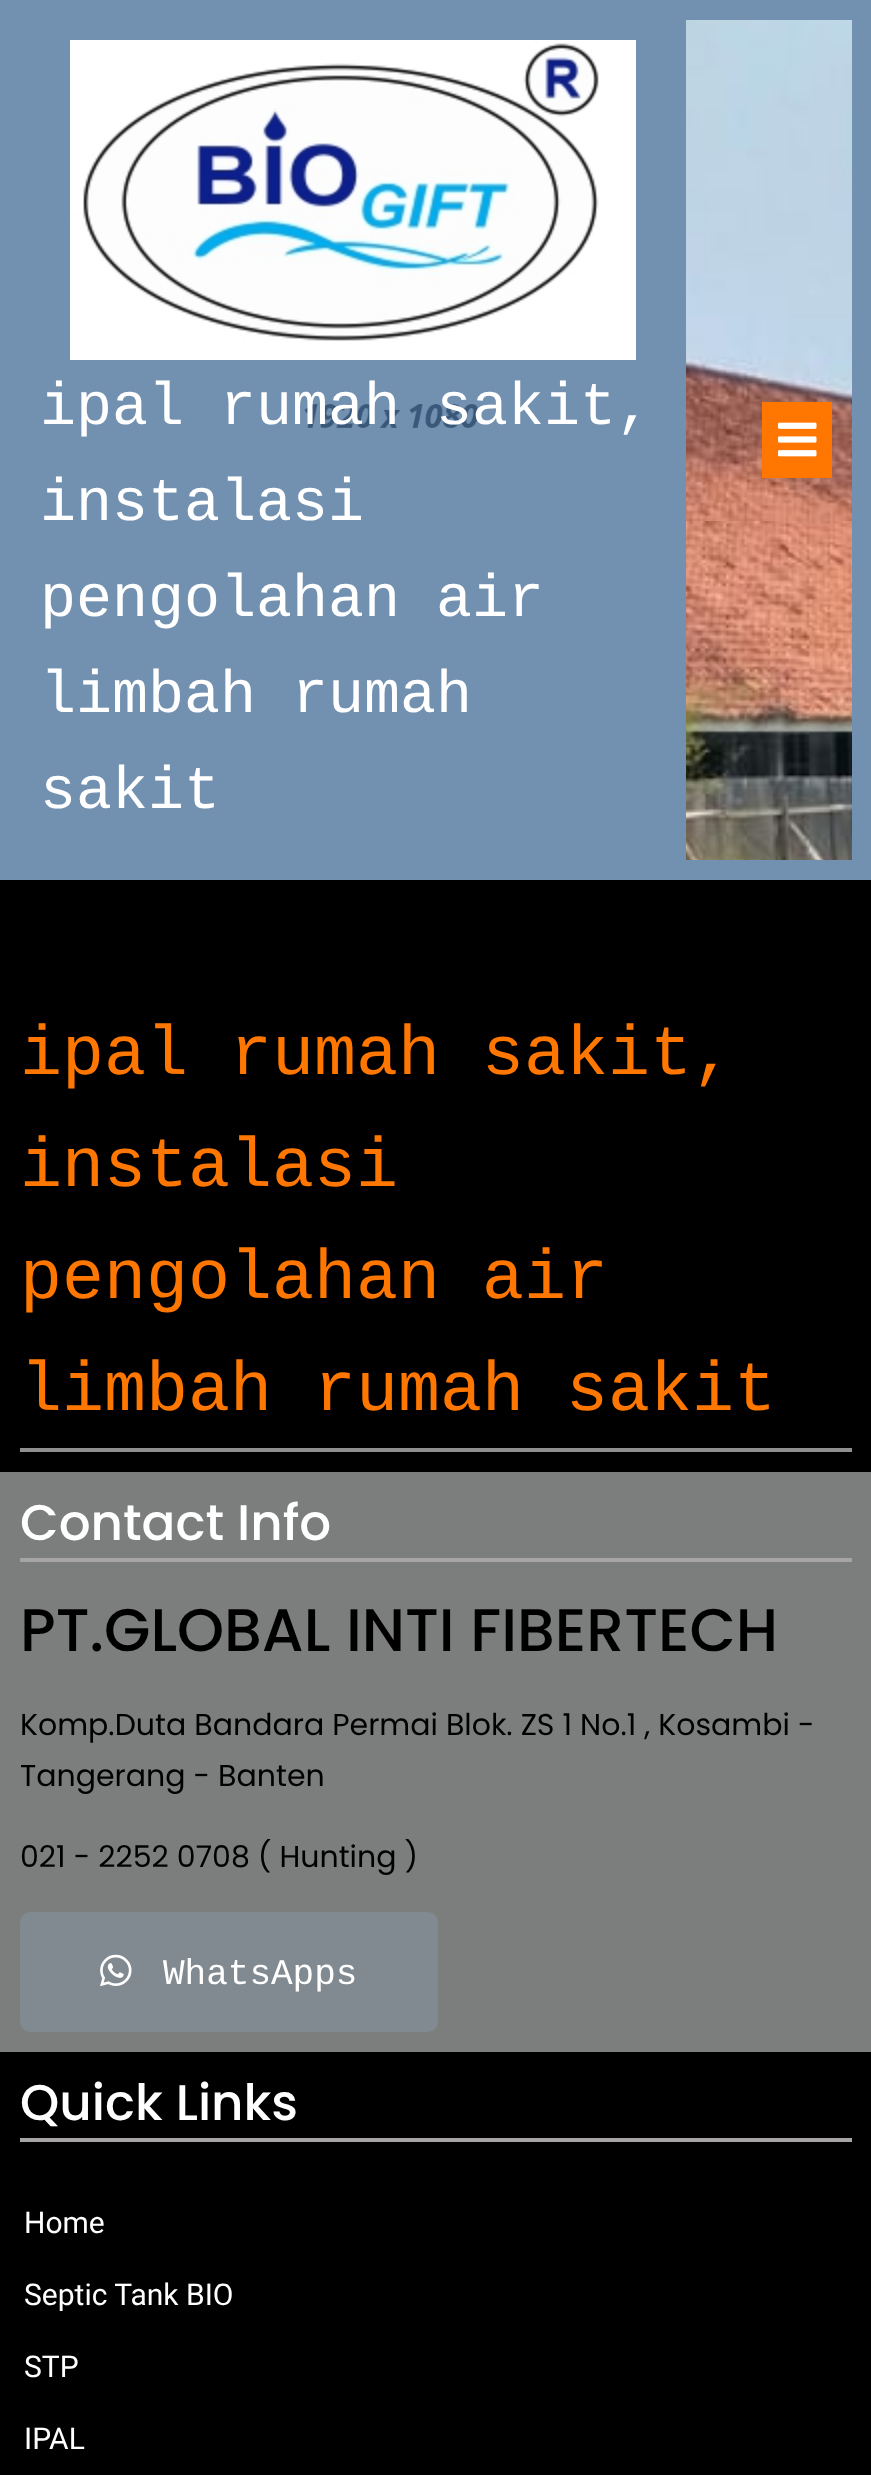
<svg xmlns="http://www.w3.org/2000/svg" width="871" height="2475">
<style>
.a{font:60px Liberation Mono;fill:#fff}
.b{font:70px Liberation Mono;fill:#f70}
.c{font:500 50px Poppins;fill:#fff}
.d{font:500 60px Poppins;fill:#000}
.e{font:30px Poppins;fill:#000}
.f{font:36px Liberation Mono;fill:#fff}
.g{font:30px Roboto;fill:#fff}
</style>
<rect width="100%" height="100%" fill="#fff"/>
<image href="1.png" x="0" y="0" width="871" height="880"/>
<image href="2.png" x="70" y="40" width="566" height="320"/>
<image href="3.png" x="686" y="20" width="166" height="840"/>
<path fill="#f70" d="M762 402h70v76H762z"/>
<image href="4.png" x="778" y="422" width="39" height="35"/>
<path fill="#000" d="M0 880h871v1595H0z"/>
<path fill="#8f8f8f" d="M20 1448h832v4H20z"/>
<path fill="#7c7d7d" d="M0 1472h871v580H0z"/>
<path fill="#a6a4a4" d="M20 1558h832v4H20z"/>
<rect fill="#818a91" x="20" y="1912" width="418" height="120" rx="10"/>
<image href="5.png" x="100" y="1954" width="32" height="33"/>
<path fill="#a6a4a4" d="M20 2138h832v4H20z"/>
<text class="a" x="40" y="424">ipal rumah sakit,</text>
<text class="a" x="40" y="520">instalasi</text>
<text class="a" x="40" y="616">pengolahan air</text>
<text class="a" x="40" y="712">limbah rumah</text>
<text class="a" x="40" y="808">sakit</text>
<text class="b" x="20" y="1074">ipal rumah sakit,</text>
<text class="b" x="20" y="1186">instalasi</text>
<text class="b" x="20" y="1298">pengolahan air</text>
<text class="b" x="20" y="1410">limbah rumah sakit</text>
<text class="c" x="20" y="1540">Contact Info</text>
<text class="d" x="20" y="1651">PT.GLOBAL INTI FIBERTECH</text>
<text class="e" x="20" y="1735">Komp.Duta Bandara Permai Blok. ZS 1 No.1 , Kosambi -</text>
<text class="e" x="20" y="1786">Tangerang - Banten</text>
<text class="e" x="20" y="1867">021 - 2252 0708 ( Hunting )</text>
<text class="f" x="163" y="1984">WhatsApps</text>
<text class="c" x="20" y="2120">Quick Links</text>
<text class="g" x="24" y="2233">Home</text>
<text class="g" x="24" y="2305">Septic Tank BIO</text>
<text class="g" x="24" y="2377">STP</text>
<text class="g" x="24" y="2449">IPAL</text>
</svg>
